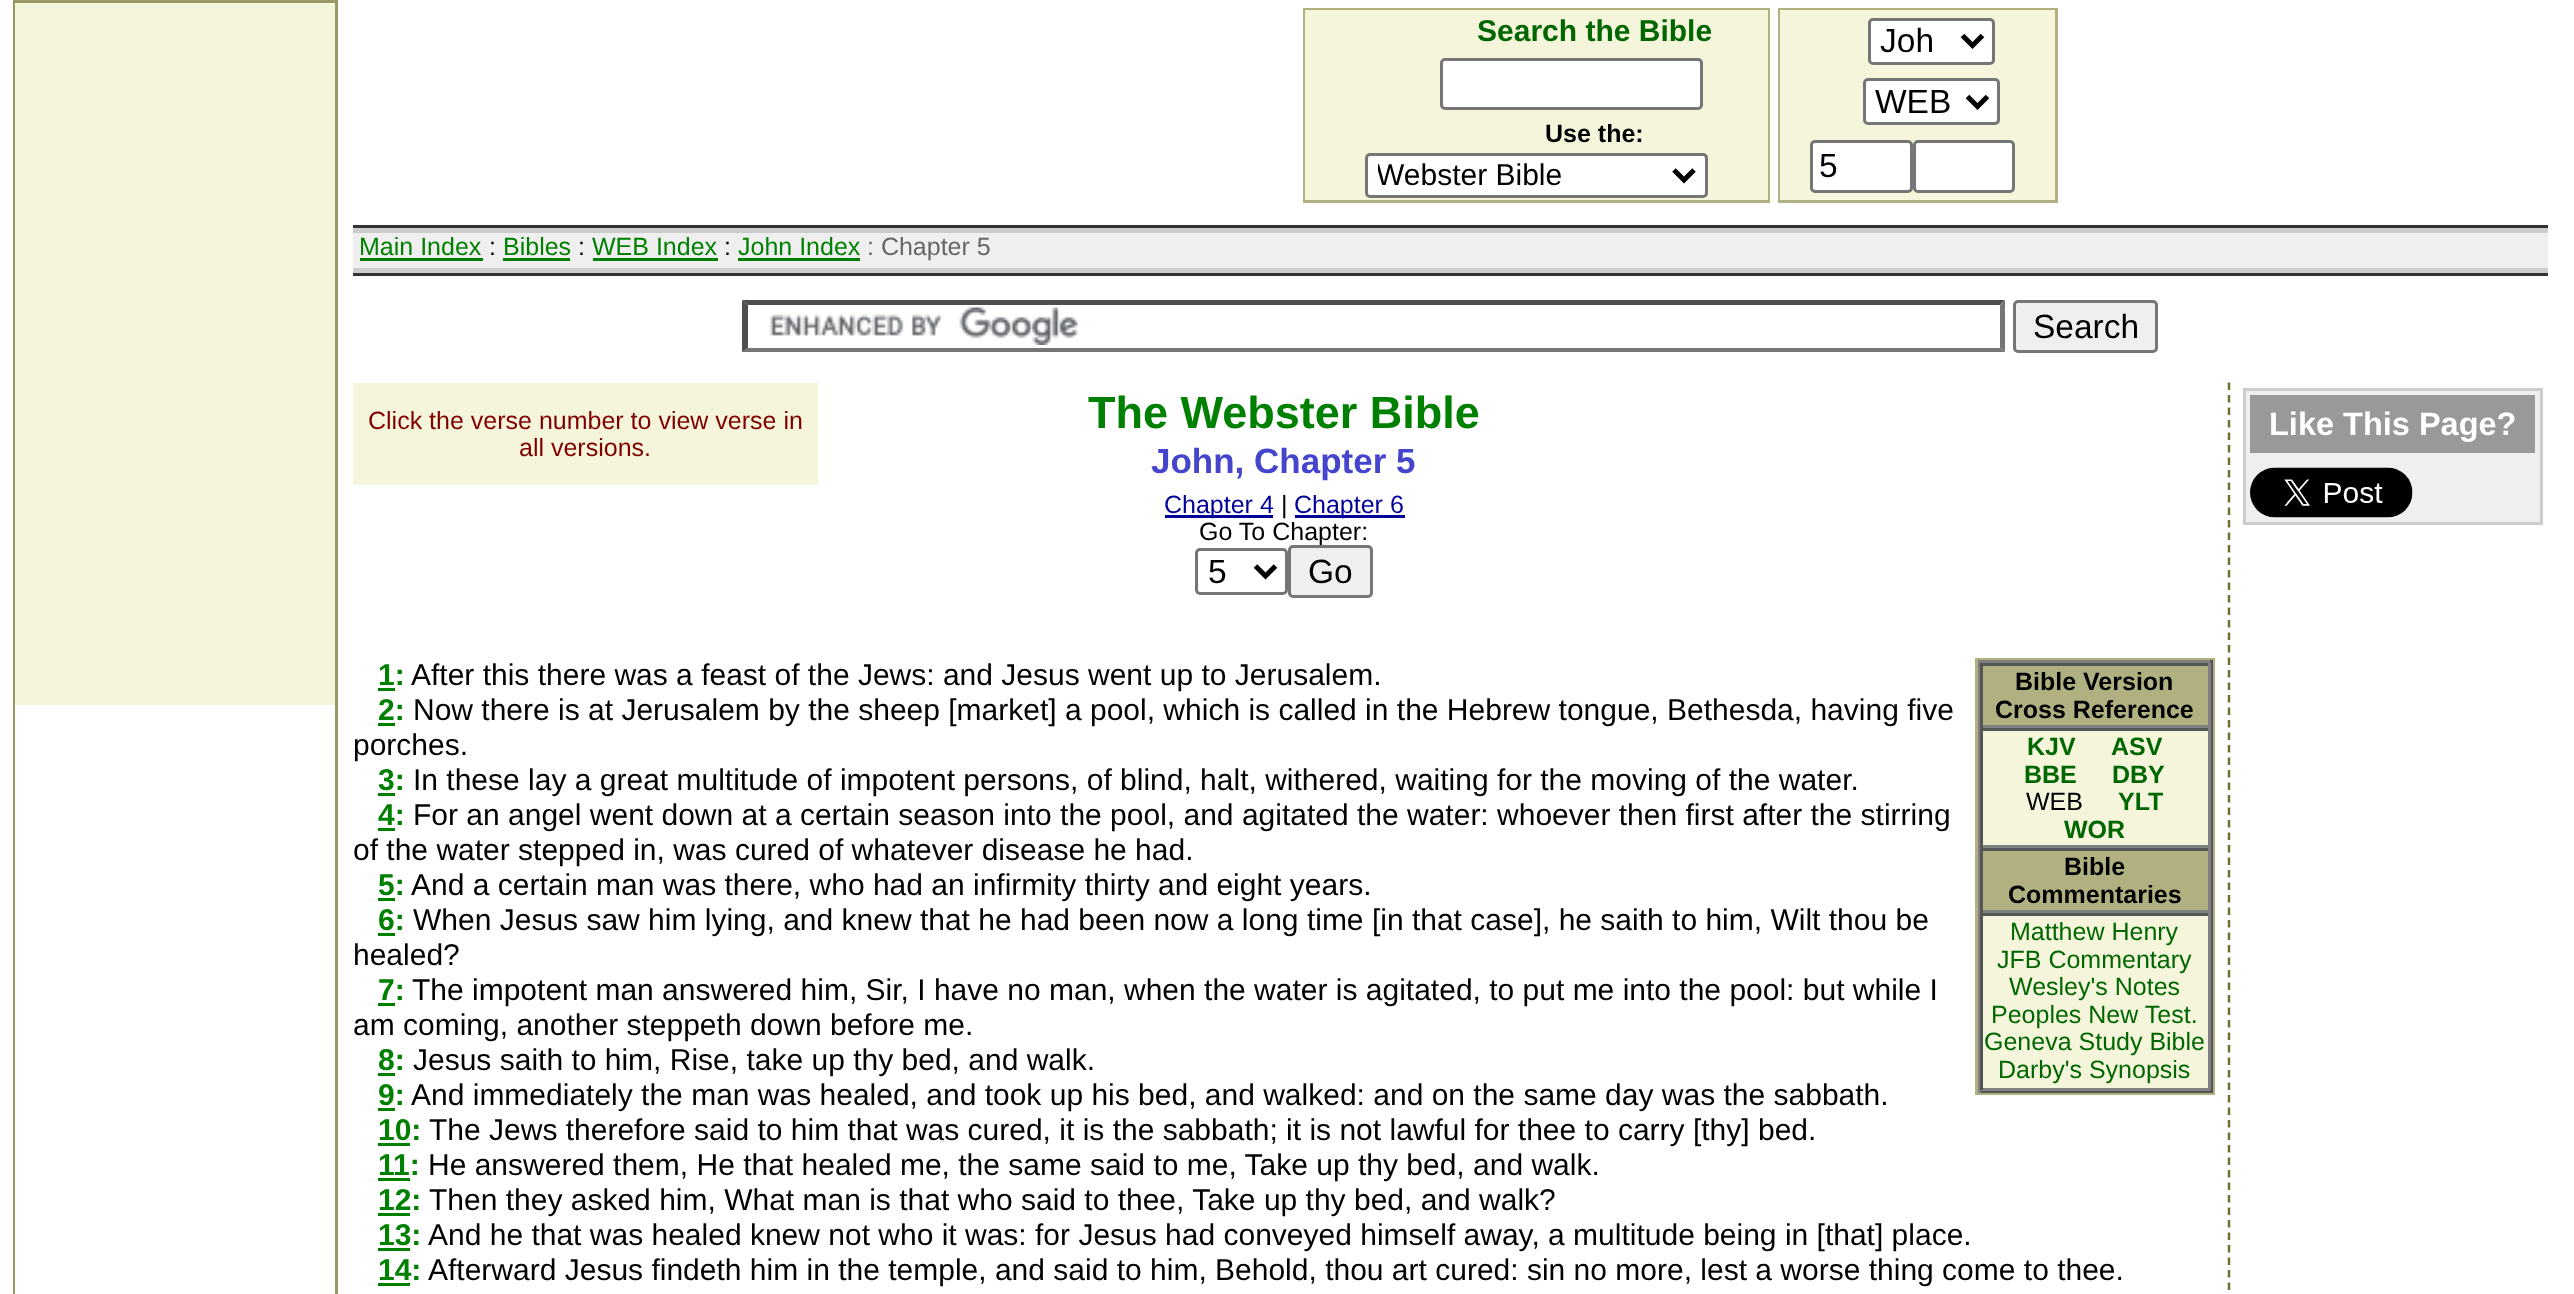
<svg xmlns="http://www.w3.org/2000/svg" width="2574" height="1294">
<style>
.a{font:bold 30px Liberation Sans;fill:#060}
.b{font:bold 25px Liberation Sans;fill:#000}
.c{font:30px Liberation Sans;fill:#000}
.d{font:33.5px Liberation Sans;fill:#000}
.e{font:25px Liberation Sans;fill:#008000}
.f{font:25px Liberation Sans;fill:#000}
.g{font:25px Liberation Sans;fill:#666}
.h{font:25px Liberation Sans;fill:#800000}
.i{font:bold 45px Liberation Sans;fill:#008000}
.j{font:bold 35px Liberation Sans;fill:#44c}
.k{font:25px Liberation Sans;fill:#009}
.l{font:bold 30px Liberation Sans;fill:#008000}
.m{font:bold 25px Liberation Sans;fill:#060}
.n{font:25px Liberation Sans;fill:#060}
.o{font:bold 32.5px Liberation Sans;fill:#fff}
</style>
<defs>
<clipPath id="clip1"><path d="M1378 155h287v40H1378z"/></clipPath>
</defs>
<rect width="100%" height="100%" fill="#fff"/>
<path fill="#996" d="M13 0h325v1294H13z"/>
<path fill="#f5f5dc" d="M15 3h320v702H15z"/>
<path fill="#fff" d="M15 705h320v589H15z"/>
<path fill="#b0b080" d="M1303 8h467v195H1303z"/>
<path fill="#f5f5dc" d="M1305 10h463v190H1305z"/>
<rect fill="#fff" stroke="#767676" stroke-width="3" x="1441.5" y="59.5" width="260" height="49" rx="3.5"/>
<rect fill="#fff" stroke="#767676" stroke-width="3" x="1366.5" y="154.5" width="340" height="42" rx="3.5"/>
<path fill="none" stroke="#000" stroke-width="5" d="M1674 170l10 10l10-10"/>
<path fill="#b0b080" d="M1778 8h280v195H1778z"/>
<path fill="#f5f5dc" d="M1780 10h275v190H1780z"/>
<rect fill="#fff" stroke="#767676" stroke-width="3" x="1869.5" y="19.5" width="124" height="44" rx="3.5"/>
<path fill="none" stroke="#000" stroke-width="5" d="M1962.5 35.5l10 10l10-10"/>
<rect fill="#fff" stroke="#767676" stroke-width="3" x="1864.5" y="79.5" width="134" height="44" rx="3.5"/>
<path fill="none" stroke="#000" stroke-width="5" d="M1967.5 96.5l10 10l10-10"/>
<rect fill="#fff" stroke="#767676" stroke-width="3" x="1811.5" y="141.5" width="100" height="50" rx="3.5"/>
<rect fill="#fff" stroke="#767676" stroke-width="3" x="1914.5" y="141.5" width="99" height="50" rx="3.5"/>
<path fill="#333" d="M353 225h2195v3H353z"/>
<path fill="#ccc" d="M353 228h2195v5H353z"/>
<path fill="#efefef" d="M353 233h2195v35H353z"/>
<path fill="#008000" d="M360 258h123v3H360z"/>
<path fill="#008000" d="M503 258h67v3H503z"/>
<path fill="#008000" d="M593 258h125v3H593z"/>
<path fill="#008000" d="M738 258h122v3H738z"/>
<path fill="#ccc" d="M353 268h2195v5H353z"/>
<path fill="#333" d="M353 273h2195v3H353z"/>
<image href="1.png" x="770" y="307" width="308" height="38"/>
<path fill="#4f4f4f" d="M742 300h1263l-5 5h-1252z"/>
<path fill="#767676" d="M2005 300v52l-5-4v-43z"/>
<path fill="#767676" d="M2005 352h-1263l6-4h1252z"/>
<path fill="#4f4f4f" d="M742 352v-52l6 5v43z"/>
<rect fill="#efefef" stroke="#767676" stroke-width="3" x="2014.5" y="301.5" width="142" height="50" rx="3.5"/>
<path fill="#f5f5dc" d="M353 383h465v102H353z"/>
<path fill="#009" d="M1165 515h108v3H1165z"/>
<path fill="#009" d="M1295 515h110v3H1295z"/>
<rect fill="none" stroke="#767676" stroke-width="3" x="1196.5" y="549.5" width="90" height="44" rx="3.5"/>
<path fill="none" stroke="#000" stroke-width="5" d="M1255.5 566l10 10l10-10"/>
<path fill="#008000" d="M378 688h17v3H378z"/>
<path fill="#b0b080" d="M1975 658h240v437H1975z"/>
<path fill="#808080" d="M1978 660h235v3H1978z"/>
<path fill="#555" d="M2210 660h3v433H2210z"/>
<path fill="#555" d="M1978 1090h235v3H1978z"/>
<path fill="#808080" d="M1978 660h3v433H1978z"/>
<path fill="#555" d="M1980 663h230v3H1980z"/>
<path fill="#808080" d="M2208 663h3v65H2208z"/>
<path fill="#808080" d="M1980 725h230v3H1980z"/>
<path fill="#555" d="M1980 663h3v65H1980z"/>
<path fill="#f5f5dc" d="M1983 731h225v114H1983z"/>
<path fill="#555" d="M1980 728h230v3H1980z"/>
<path fill="#808080" d="M2208 728h3v120H2208z"/>
<path fill="#808080" d="M1980 845h230v3H1980z"/>
<path fill="#555" d="M1980 728h3v120H1980z"/>
<path fill="#555" d="M1980 848h230v3H1980z"/>
<path fill="#808080" d="M2208 848h3v65H2208z"/>
<path fill="#808080" d="M1980 910h230v3H1980z"/>
<path fill="#555" d="M1980 848h3v65H1980z"/>
<path fill="#f5f5dc" d="M1983 916h225v172H1983z"/>
<path fill="#555" d="M1980 913h230v3H1980z"/>
<path fill="#808080" d="M2208 913h3v177H2208z"/>
<path fill="#808080" d="M1980 1088h230v3H1980z"/>
<path fill="#555" d="M1980 913h3v177H1980z"/>
<path fill="#008000" d="M378 723h17v3H378z"/>
<path fill="#008000" d="M378 793h17v3H378z"/>
<path fill="#008000" d="M378 828h17v3H378z"/>
<path fill="#008000" d="M378 898h17v3H378z"/>
<path fill="#008000" d="M378 933h17v3H378z"/>
<path fill="#008000" d="M378 1003h17v3H378z"/>
<path fill="#008000" d="M378 1073h17v3H378z"/>
<path fill="#008000" d="M378 1108h17v3H378z"/>
<path fill="#008000" d="M378 1143h32v3H378z"/>
<path fill="#008000" d="M378 1178h32v3H378z"/>
<path fill="#008000" d="M378 1213h32v3H378z"/>
<path fill="#008000" d="M378 1248h32v3H378z"/>
<path fill="#008000" d="M378 1283h32v3H378z"/>
<path fill="none" stroke="#707032" stroke-width="2.5" stroke-dasharray="7.5 5" d="M2229 382.5v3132.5"/>
<path fill="#efefef" stroke="#ccc" stroke-width="3" d="M2244.5 389.5h297v134H2244.5z"/>
<path fill="#999" d="M2250 395h285v58H2250z"/>
<image href="2.png" x="2250" y="467" width="163" height="51"/>
<text class="a" x="1477" y="41">Search the Bible</text>
<text class="b" x="1545" y="142">Use the:</text>
<g clip-path="url(#clip1)">
<text class="c" x="1376" y="185">Webster Bible</text>
</g>
<text class="d" x="1880" y="52">Joh</text>
<text class="d" x="1875" y="113">WEB</text>
<text class="d" x="1819" y="177">5</text>
<text class="e" x="359" y="255">Main Index</text>
<text class="f" x="489" y="255">:</text>
<text class="e" x="503" y="255">Bibles</text>
<text class="f" x="578" y="255">:</text>
<text class="e" x="592" y="255">WEB Index</text>
<text class="f" x="724" y="255">:</text>
<text class="e" x="738" y="255">John Index</text>
<text class="g" x="867" y="255">: Chapter 5</text>
<text class="d" x="2033" y="338">Search</text>
<text class="h" x="368" y="429">Click the verse number to view verse in</text>
<text class="h" x="519" y="456">all versions.</text>
<text class="i" x="1088" y="428">The Webster Bible</text>
<text class="j" x="1151" y="473">John, Chapter 5</text>
<text class="k" x="1164" y="513">Chapter 4</text>
<text class="f" x="1281" y="513">|</text>
<text class="k" x="1294" y="513">Chapter 6</text>
<text class="f" x="1199" y="540">Go To Chapter:</text>
<text class="d" x="1208" y="583">5</text>
<rect fill="#efefef" stroke="#767676" stroke-width="3" x="1289.5" y="546.5" width="82" height="50" rx="3.5"/>
<text class="d" x="1308" y="583">Go</text>
<text class="l" x="378" y="685">1:</text>
<text class="c" x="411" y="685">After this there was a feast of the Jews: and Jesus went up to Jerusalem.</text>
<text class="b" x="2015" y="690">Bible Version</text>
<text class="b" x="1995" y="718">Cross Reference</text>
<text class="m" x="2027" y="755">KJV</text>
<text class="m" x="2111" y="755">ASV</text>
<text class="m" x="2024" y="783">BBE</text>
<text class="m" x="2112" y="783">DBY</text>
<text class="f" x="2026" y="810">WEB</text>
<text class="m" x="2118" y="810">YLT</text>
<text class="m" x="2064" y="838">WOR</text>
<text class="b" x="2064" y="875">Bible</text>
<text class="b" x="2008" y="903">Commentaries</text>
<text class="n" x="2010" y="940">Matthew Henry</text>
<text class="n" x="1997" y="968">JFB Commentary</text>
<text class="n" x="2009" y="995">Wesley's Notes</text>
<text class="n" x="1991" y="1023">Peoples New Test.</text>
<text class="n" x="1984" y="1050">Geneva Study Bible</text>
<text class="n" x="1998" y="1078">Darby's Synopsis</text>
<text class="l" x="378" y="720">2:</text>
<text class="c" x="413" y="720">Now there is at Jerusalem by the sheep [market] a pool, which is called in the Hebrew tongue, Bethesda, having five</text>
<text class="c" x="353" y="755">porches.</text>
<text class="l" x="378" y="790">3:</text>
<text class="c" x="413" y="790">In these lay a great multitude of impotent persons, of blind, halt, withered, waiting for the moving of the water.</text>
<text class="l" x="378" y="825">4:</text>
<text class="c" x="413" y="825">For an angel went down at a certain season into the pool, and agitated the water: whoever then first after the stirring</text>
<text class="c" x="353" y="860">of the water stepped in, was cured of whatever disease he had.</text>
<text class="l" x="378" y="895">5:</text>
<text class="c" x="411" y="895">And a certain man was there, who had an infirmity thirty and eight years.</text>
<text class="l" x="378" y="930">6:</text>
<text class="c" x="413" y="930">When Jesus saw him lying, and knew that he had been now a long time [in that case], he saith to him, Wilt thou be</text>
<text class="c" x="353" y="965">healed?</text>
<text class="l" x="378" y="1000">7:</text>
<text class="c" x="412" y="1000">The impotent man answered him, Sir, I have no man, when the water is agitated, to put me into the pool: but while I</text>
<text class="c" x="353" y="1035">am coming, another steppeth down before me.</text>
<text class="l" x="378" y="1070">8:</text>
<text class="c" x="413" y="1070">Jesus saith to him, Rise, take up thy bed, and walk.</text>
<text class="l" x="378" y="1105">9:</text>
<text class="c" x="411" y="1105">And immediately the man was healed, and took up his bed, and walked: and on the same day was the sabbath.</text>
<text class="l" x="378" y="1140">10:</text>
<text class="c" x="429" y="1140">The Jews therefore said to him that was cured, it is the sabbath; it is not lawful for thee to carry [thy] bed.</text>
<text class="l" x="378" y="1175">11:</text>
<text class="c" x="428" y="1175">He answered them, He that healed me, the same said to me, Take up thy bed, and walk.</text>
<text class="l" x="378" y="1210">12:</text>
<text class="c" x="429" y="1210">Then they asked him, What man is that who said to thee, Take up thy bed, and walk?</text>
<text class="l" x="378" y="1245">13:</text>
<text class="c" x="428" y="1245">And he that was healed knew not who it was: for Jesus had conveyed himself away, a multitude being in [that] place.</text>
<text class="l" x="378" y="1280">14:</text>
<text class="c" x="428" y="1280">Afterward Jesus findeth him in the temple, and said to him, Behold, thou art cured: sin no more, lest a worse thing come to thee.</text>
<text class="o" x="2269" y="435">Like This Page?</text>
</svg>
